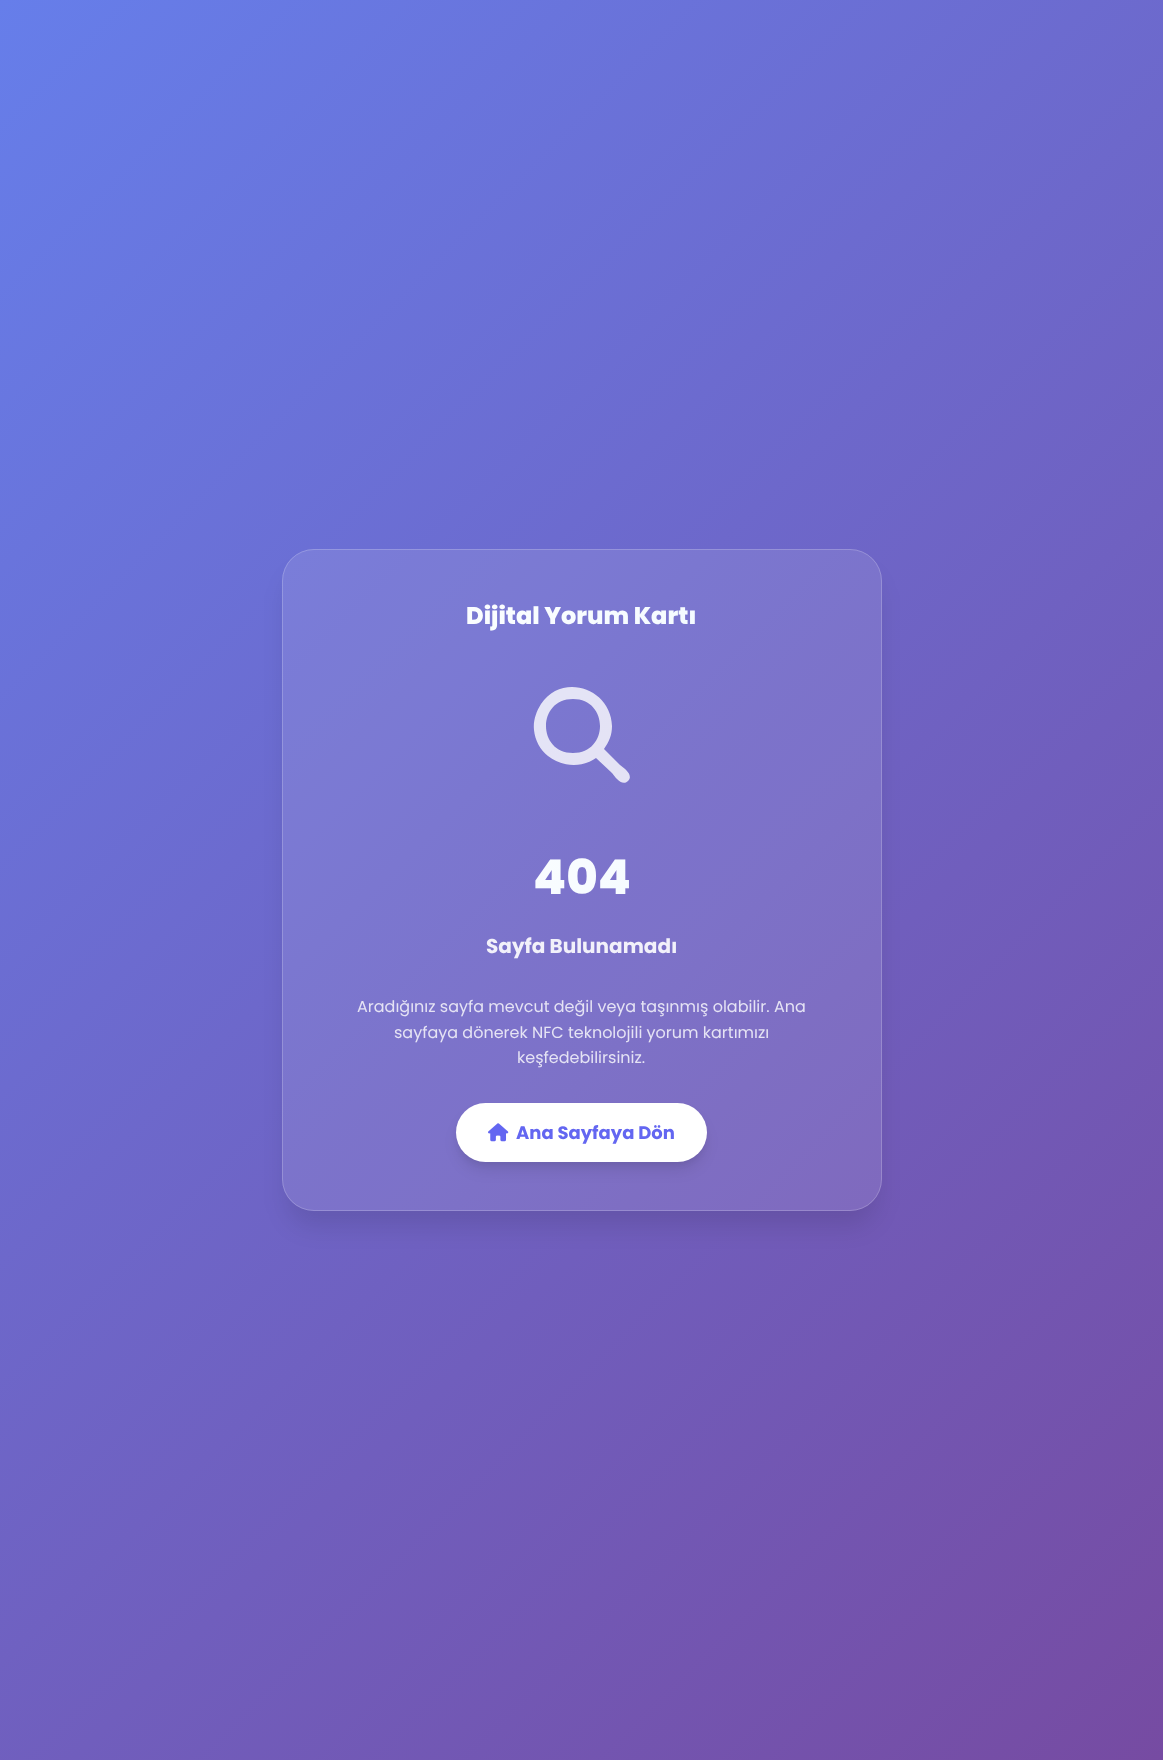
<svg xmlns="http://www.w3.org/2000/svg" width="1163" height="1760">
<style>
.a{font:800 24px Poppins;fill:url(#g2)}
.b{font:800 48px Poppins;fill:url(#g3)}
.c{font:bold 20px Poppins;fill:#f2f1fa}
.d{font:16px Poppins;fill:#e5e3f4}
.e{font:bold 18px Poppins;fill:#6366f1}
</style>
<defs>
<linearGradient id="g1" gradientUnits="userSpaceOnUse" x1="-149" y1="149" x2="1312" y2="1611"><stop offset="0" stop-color="#667eea"/><stop offset="1" stop-color="#764ba2"/></linearGradient>
<clipPath id="clip1"><path d="M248 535h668v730h-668zm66 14h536c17.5 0 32 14.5 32 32v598c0 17.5-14.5 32-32 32h-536c-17.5 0-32-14.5-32-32v-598c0-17.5 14.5-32 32-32z" clip-rule="evenodd"/></clipPath>
<linearGradient id="g2" gradientUnits="userSpaceOnUse" x1="447" y1="481" x2="716" y2="750"><stop offset="0" stop-color="#fff"/><stop offset="1" stop-color="#f0f9ff"/></linearGradient>
<linearGradient id="g3" gradientUnits="userSpaceOnUse" x1="438" y1="735" x2="725" y2="1022"><stop offset="0" stop-color="#fff"/><stop offset="1" stop-color="#f0f9ff"/></linearGradient>
</defs>
<rect width="100%" height="100%" fill="#fff"/>
<path fill="url(#g1)" d="M0 0h1163v1760H0z"/>
<g clip-path="url(#clip1)">
<rect fill="#0000001a" filter="blur(12.5px)" x="287" y="574" width="590" height="652" rx="27"/>
</g>
<rect fill="#ffffff1a" x="282" y="549" width="600" height="662" rx="32"/>
<rect fill="none" stroke="#ffffff33" x="282.5" y="549.5" width="599" height="661" rx="31.5"/>
<path fill="#ffffffcc" d="M612 726c0 9-3 16-8 23l16 16c4 3 14 10 8 16c-6 6-13-4-16-8l-16-15c-14 10-34 9-48-2c-8-6-13-16-14-26c-1-9 2-18 7-26c21-32 70-16 71 22zm-39 27c36 0 36-54 0-54c-36 0-36 54 0 54z"/>
<rect fill="#0000000d" filter="blur(3px)" x="458" y="1109" width="247" height="55" rx="27.5"/>
<rect fill="#0000001a" filter="blur(7.5px)" x="459" y="1116" width="245" height="53" rx="26.5"/>
<rect fill="#fff" x="456" y="1103" width="251" height="59" rx="29.5"/>
<image href="1.png" x="488" y="1123" width="21" height="19"/>
<text class="a" x="466" y="624">Dijital Yorum Kartı</text>
<text class="b" x="533" y="894">404</text>
<text class="c" x="486" y="953">Sayfa Bulunamadı</text>
<text class="d" x="357" y="1012">Aradığınız sayfa mevcut değil veya taşınmış olabilir.</text>
<text class="d" x="774" y="1012">Ana</text>
<text class="d" x="394" y="1038">sayfaya dönerek NFC teknolojili yorum kartımızı</text>
<text class="d" x="517" y="1063">keşfedebilirsiniz.</text>
<text class="e" x="516" y="1139">Ana Sayfaya Dön</text>
</svg>
